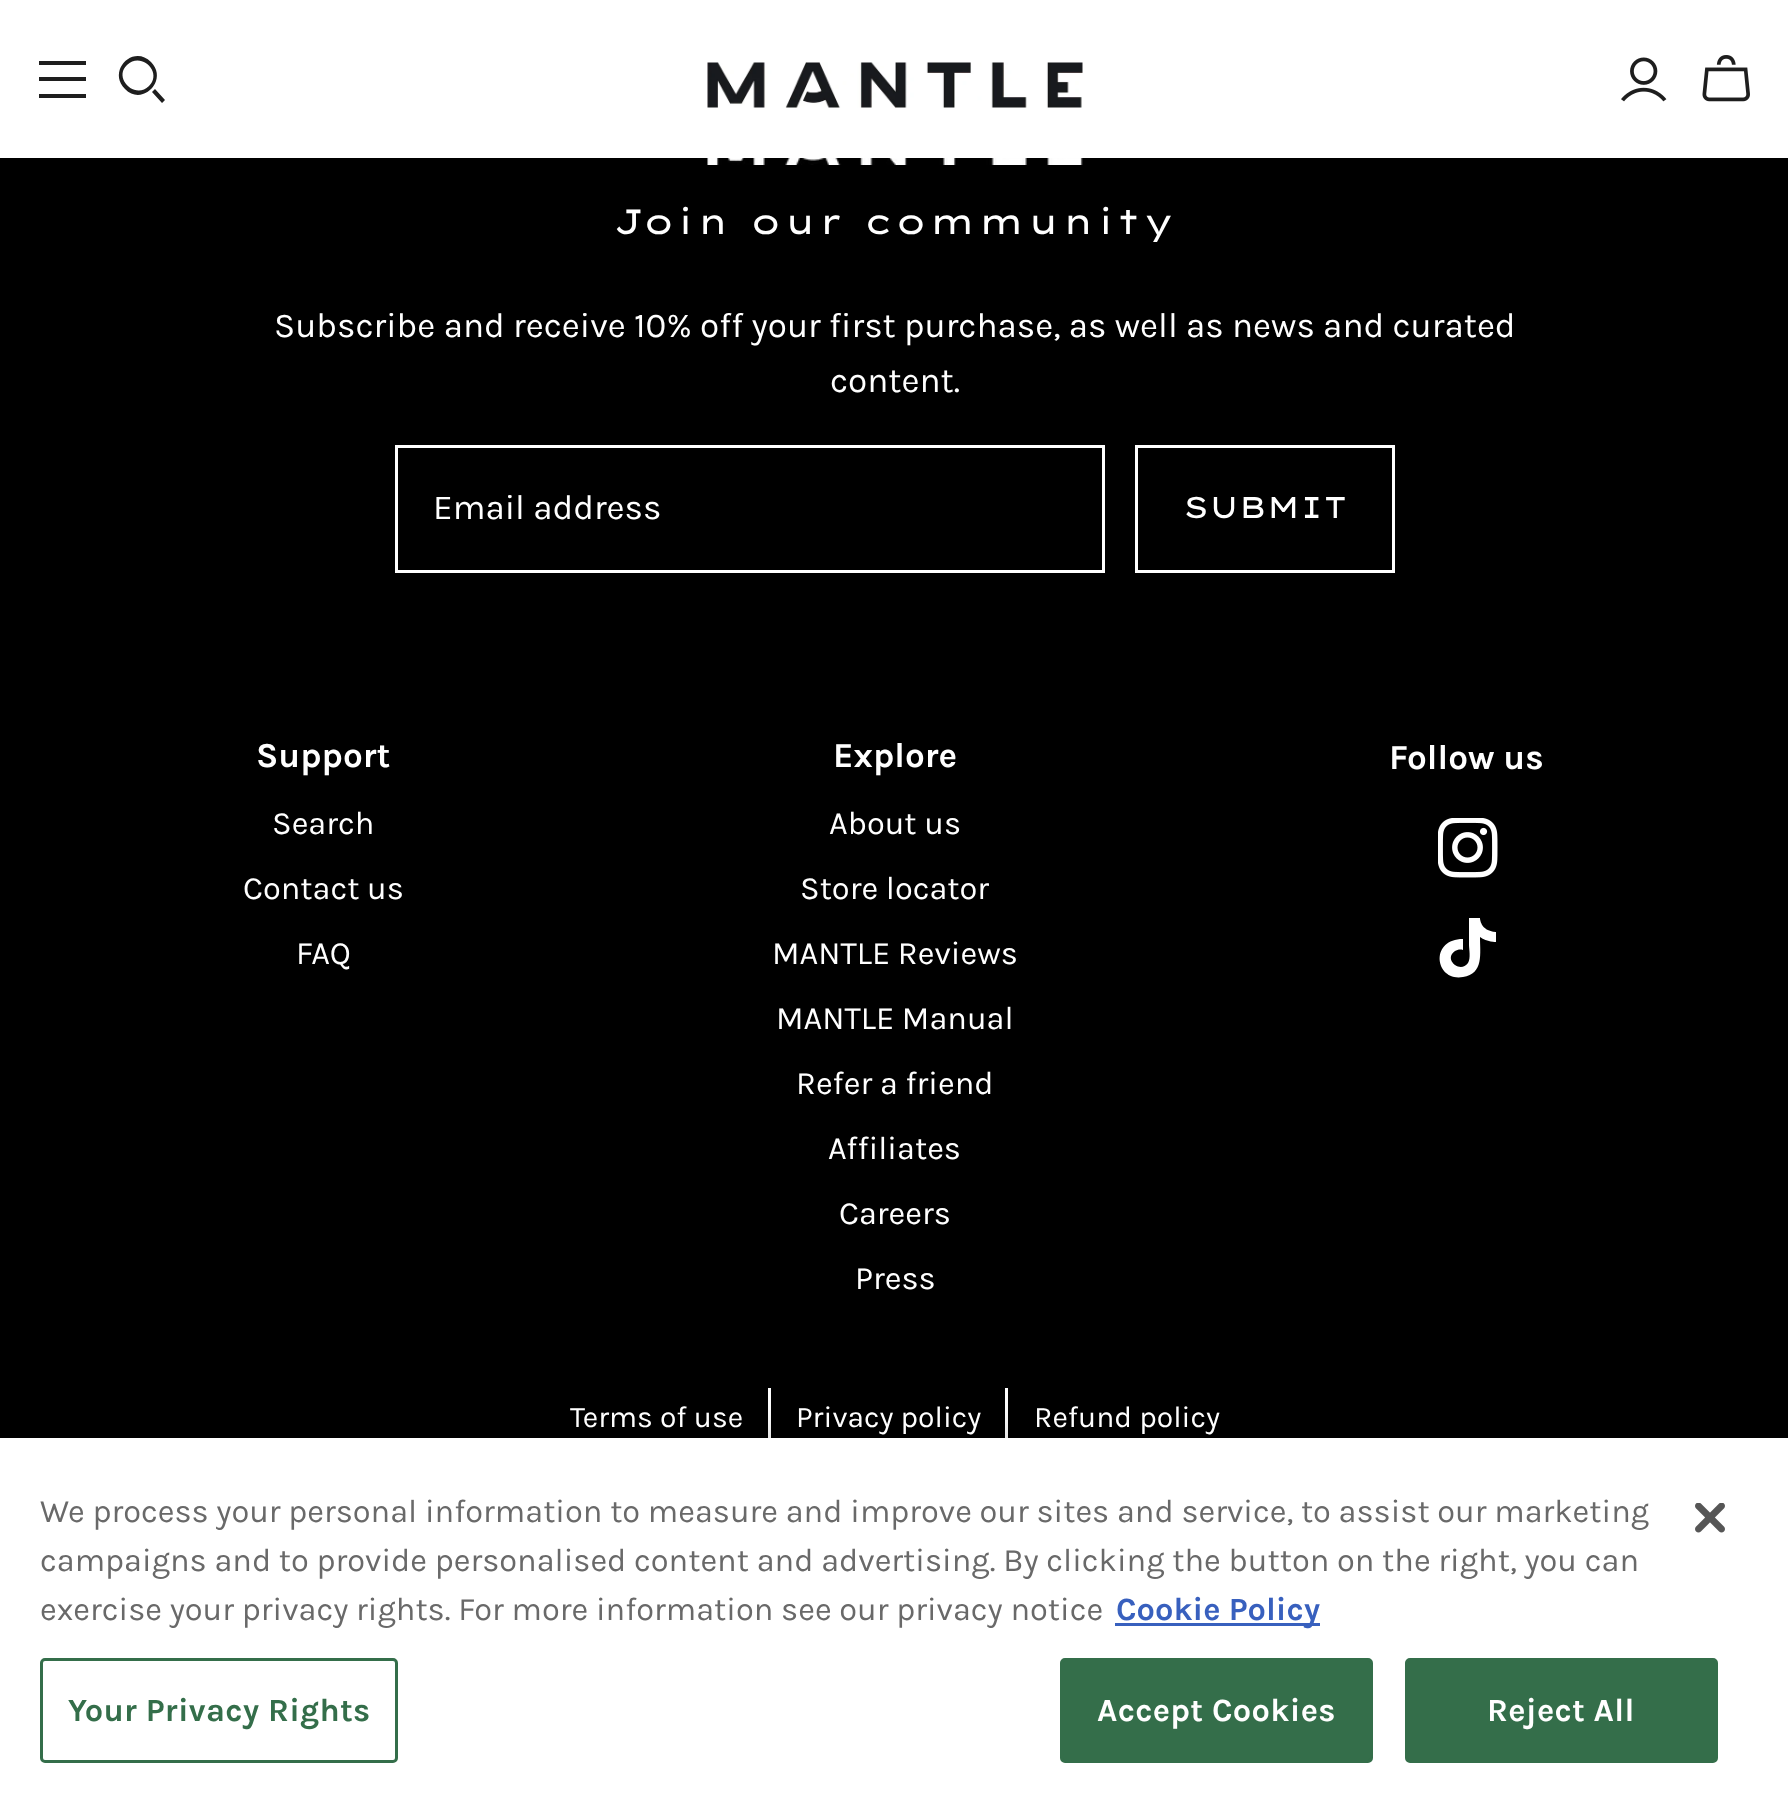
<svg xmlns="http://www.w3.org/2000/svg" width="1788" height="1812">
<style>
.a{font:35px Lexend Tera;letter-spacing:2.75px;fill:#fff}
.b{font:35px Karla;fill:#fff}
.c{font:30px Lexend Tera;fill:#fff}
.d{font:bold 35px Karla;fill:#fff}
.e{font:32.5px Karla;fill:#fff}
.f{font:30px Karla;fill:#fff}
.g{font:32.5px Karla;fill:#696969}
.h{font:bold 32.5px Karla;fill:#3860be}
.i{font:bold 32.5px Karla;letter-spacing:0.3px;fill:#346e4a}
.j{font:bold 32.5px Karla;letter-spacing:0.3px;fill:#fff}
</style>
<rect width="100%" height="100%" fill="#000"/>
<path fill="#fff" d="M0 0h1788v158H0z"/>
<path fill="#1e1e1e" fill-rule="evenodd" d="M86 65h-47v-4h47zm0 16h-47v-4h47zm-47 17h47v-4h-47z"/>
<path fill="#1e1e1e" fill-rule="evenodd" d="M127 65c-14 13 8 35 22 21c14-14-8-35-22-21zm-2 24c-18-18 8-45 26-27c18 18-9 45-26 27zm37 14l-10-11l3-3l10 11z"/>
<image href="1.png" x="1621" y="57" width="46" height="45"/>
<image href="2.png" x="1702" y="55" width="48" height="47"/>
<image href="3.png" x="707" y="62" width="376" height="46"/>
<image href="4.png" x="707" y="158" width="376" height="7"/>
<path fill="none" stroke="#fff" stroke-width="3" d="M396.5 446.5h707v125H396.5z"/>
<path fill="none" stroke="#fff" stroke-width="3" d="M1136.5 446.5h257v125H1136.5z"/>
<image href="5.png" x="1438" y="818" width="60" height="60"/>
<path fill="#fff" d="M1469 918h11c0 0 0 13 16 14v10c0 0-9 0-16-5c0 16 4 37-17 40c-28 5-34-38 0-38v11c-3-1-6 0-8 1c-12 8 5 23 13 12c3-5 1-14 1-18z"/>
<path fill="#fff" d="M768 1388h3v50H768z"/>
<path fill="#fff" d="M1005 1388h3v50H1005z"/>
<path fill="#00000033" filter="blur(22.5px)" d="M0 1438h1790v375H0z"/>
<path fill="#fff" d="M0 1438h1788v374H0z"/>
<path fill="#3860be" d="M1115 1623h205v3H1115z"/>
<rect fill="none" stroke="#346e4a" stroke-width="3" x="41.5" y="1659.5" width="355" height="102" rx="3.5"/>
<rect fill="#346e4a" stroke="#346e4a" stroke-width="3" x="1061.5" y="1659.5" width="310" height="102" rx="3.5"/>
<rect fill="#346e4a" stroke="#346e4a" stroke-width="3" x="1406.5" y="1659.5" width="310" height="102" rx="3.5"/>
<image href="6.png" x="1695" y="1503" width="30" height="30"/>
<text class="a" x="613" y="234">Join our community</text>
<text class="b" x="274" y="337">Subscribe and receive 10% off your first purchase, as well as news and curated</text>
<text class="b" x="830" y="392">content.</text>
<text class="b" x="433" y="519">Email address</text>
<text class="c" x="1183" y="518">SUBMIT</text>
<text class="d" x="256" y="767">Support</text>
<text class="e" x="272" y="834">Search</text>
<text class="e" x="243" y="899">Contact us</text>
<text class="e" x="296" y="964">FAQ</text>
<text class="d" x="833" y="767">Explore</text>
<text class="e" x="829" y="834">About us</text>
<text class="e" x="800" y="899">Store locator</text>
<text class="e" x="772" y="964">MANTLE Reviews</text>
<text class="e" x="776" y="1029">MANTLE Manual</text>
<text class="e" x="796" y="1094">Refer a friend</text>
<text class="e" x="828" y="1159">Affiliates</text>
<text class="e" x="839" y="1224">Careers</text>
<text class="e" x="855" y="1289">Press</text>
<text class="d" x="1389" y="769">Follow us</text>
<text class="f" x="570" y="1427">Terms of use</text>
<text class="f" x="796" y="1427">Privacy policy</text>
<text class="f" x="1034" y="1427">Refund policy</text>
<text class="g" x="40" y="1522">We process your personal information to measure and improve our sites and service, to assist our marketing</text>
<text class="g" x="40" y="1571">campaigns and to provide personalised content and advertising. By clicking the button on the right, you can</text>
<text class="g" x="40" y="1620">exercise your privacy rights. For more information see our privacy notice</text>
<text class="h" x="1116" y="1620">Cookie Policy</text>
<text class="i" x="68" y="1721">Your Privacy Rights</text>
<text class="j" x="1097" y="1721">Accept Cookies</text>
<text class="j" x="1487" y="1721">Reject All</text>
</svg>
